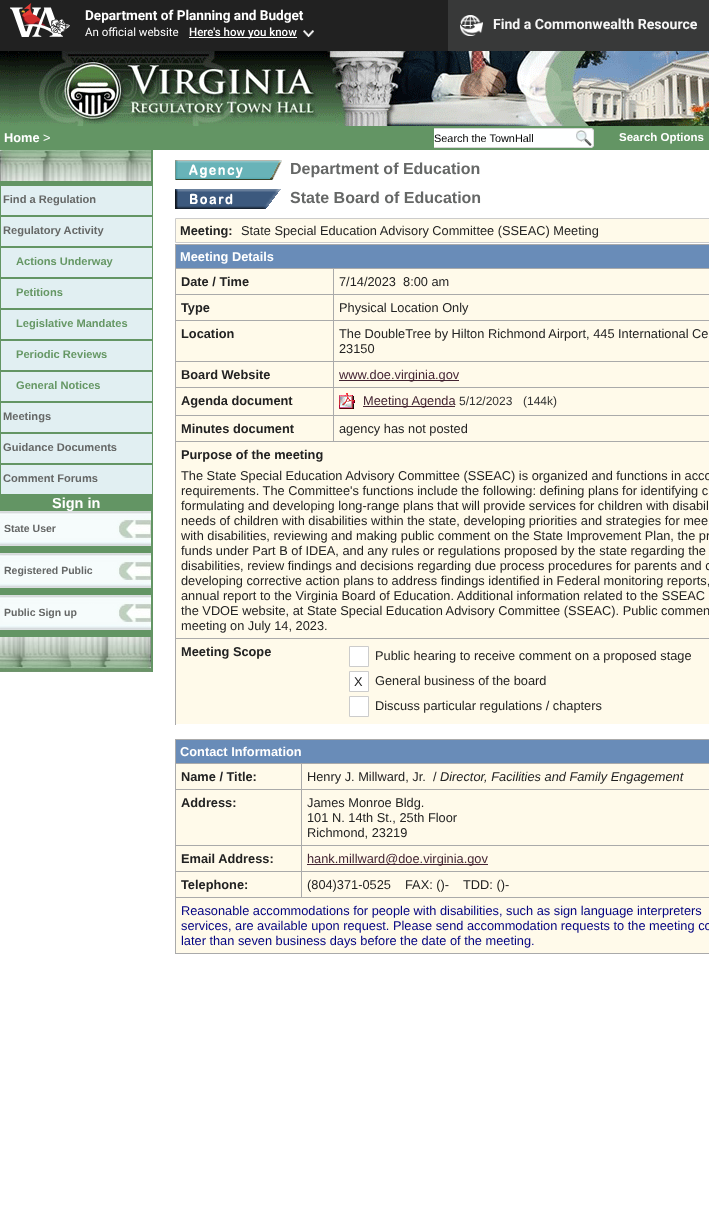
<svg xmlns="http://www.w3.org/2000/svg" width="709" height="1230">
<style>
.a{font:bold 13.6px Roboto;fill:#fff}
.b{font:11.5px Roboto;fill:#fff}
.c{font:500 11.5px Roboto;fill:#fff}
.d{font:bold 14.1px Roboto;fill:#f6f6f6}
.e{font:bold 12.8px Liberation Sans;fill:#fff}
.f{font:12.8px Liberation Sans;fill:#fff}
.g{font:10.9px Liberation Sans;fill:#000}
.h{font:bold 11.5px Liberation Sans;fill:#fff}
.i{font:bold 11.1px Liberation Sans;fill:#656766}
.j{font:bold 11.1px Liberation Sans;fill:#659764}
.k{font:bold 14.5px Liberation Sans;fill:#fff}
.l{font:bold 10.5px Liberation Sans;fill:#656766}
.m{font:bold 16px Liberation Sans;fill:#656766}
.n{font:bold 12.8px Liberation Sans;fill:#222}
.o{font:12.8px Liberation Sans;fill:#222}
.p{font:12.8px Liberation Sans;fill:#432432}
.q{font:12px Liberation Sans;fill:#333}
.r{font:italic 12.8px Liberation Sans;fill:#222}
.s{font:12.8px Liberation Sans;fill:#000080}
</style>
<rect width="100%" height="100%" fill="#fff"/>
<path fill="#212121" d="M0 0h448v51H0z"/>
<image href="1.png" x="10" y="3" width="60" height="34"/>
<path fill="#fff" d="M189 37h108v1H189z"/>
<image href="2.png" x="303" y="30" width="11" height="7"/>
<path fill="#383939" d="M448 0h261v51H448z"/>
<image href="3.png" x="460" y="15" width="23" height="21"/>
<image href="4.png" x="0" y="51" width="709" height="75"/>
<path fill="#639564" d="M0 126h709v24H0z"/>
<path fill="#feffff" d="M434 129h140v18H434z"/>
<path fill="#d5d5d5" d="M434 128h140v1H434z"/>
<path fill="#d5d5d5" d="M434 147h140v1H434z"/>
<image href="5.png" x="574" y="128" width="20" height="20"/>
<path fill="#639564" d="M0 150h153v522H0z"/>
<image href="6.png" x="0" y="150" width="151" height="31"/>
<path fill="#e1eff2" d="M1 186h151v29H1z"/>
<path fill="#e1eff2" d="M1 217h151v29H1z"/>
<path fill="#e1eff2" d="M1 248h151v29H1z"/>
<path fill="#e1eff2" d="M1 279h151v29H1z"/>
<path fill="#e1eff2" d="M1 310h151v29H1z"/>
<path fill="#e1eff2" d="M1 341h151v29H1z"/>
<path fill="#e1eff2" d="M1 372h151v29H1z"/>
<path fill="#e1eff2" d="M1 403h151v29H1z"/>
<path fill="#e1eff2" d="M1 434h151v29H1z"/>
<path fill="#e1eff2" d="M1 465h151v29H1z"/>
<image href="7.png" x="0" y="511" width="151" height="35"/>
<image href="7.png" x="0" y="553" width="151" height="35"/>
<image href="7.png" x="0" y="595" width="151" height="35"/>
<image href="8.png" x="0" y="637" width="151" height="35"/>
<image href="9.png" x="175" y="160" width="107" height="20"/>
<image href="10.png" x="175" y="189" width="106" height="20"/>
<path fill="#fffaea" stroke="#ccc" d="M175.5 218.5h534v24H175.5z"/>
<path fill="#fffaea" d="M176 269h533v455H176z"/>
<path fill="#698cb8" d="M176 245h533v23H176z"/>
<path fill="#aaa" d="M175 244h534v1H175z"/>
<path fill="#aaa" d="M333 268h376v1H333z"/>
<path fill="#aaa" d="M333 294h376v1H333z"/>
<path fill="#aaa" d="M333 320h376v1H333z"/>
<path fill="#aaa" d="M333 361h376v1H333z"/>
<path fill="#aaa" d="M333 387h376v1H333z"/>
<path fill="#aaa" d="M333 415h376v1H333z"/>
<path fill="#aaa" d="M175 441h534v1H175z"/>
<path fill="#aaa" d="M333 415h1v27H333z"/>
<path fill="#aaa" d="M175 415h159v1H175z"/>
<path fill="#aaa" d="M333 387h1v29H333z"/>
<path fill="#aaa" d="M175 387h159v1H175z"/>
<path fill="#aaa" d="M333 361h1v27H333z"/>
<path fill="#aaa" d="M175 361h159v1H175z"/>
<path fill="#aaa" d="M333 320h1v42H333z"/>
<path fill="#aaa" d="M175 320h159v1H175z"/>
<path fill="#aaa" d="M333 294h1v27H333z"/>
<path fill="#aaa" d="M175 294h159v1H175z"/>
<path fill="#aaa" d="M333 268h1v27H333z"/>
<path fill="#aaa" d="M175 268h159v1H175z"/>
<path fill="#aaa" d="M175 638h534v1H175z"/>
<path fill="#aaa" d="M175 638h1v87H175z"/>
<path fill="#aaa" d="M175 441h1v198H175z"/>
<path fill="#aaa" d="M175 415h1v27H175z"/>
<path fill="#aaa" d="M175 387h1v29H175z"/>
<path fill="#aaa" d="M175 361h1v27H175z"/>
<path fill="#aaa" d="M175 320h1v42H175z"/>
<path fill="#aaa" d="M175 294h1v27H175z"/>
<path fill="#aaa" d="M175 268h1v27H175z"/>
<path fill="#aaa" d="M175 244h1v25H175z"/>
<path fill="#432432" d="M339 380h120v1H339z"/>
<image href="11.png" x="339" y="393" width="16" height="16"/>
<path fill="#432432" d="M363 406h92v1H363z"/>
<path fill="#fff" stroke="#ccc" d="M349.5 646.5h19v20H349.5z"/>
<path fill="#fff" stroke="#ccc" d="M349.5 671.5h19v20H349.5z"/>
<path fill="#fff" stroke="#ccc" d="M349.5 696.5h19v20H349.5z"/>
<path fill="#fffaea" d="M176 764h533v189H176z"/>
<path fill="#698cb8" d="M176 740h533v23H176z"/>
<path fill="#aaa" d="M175 739h534v1H175z"/>
<path fill="#aaa" d="M301 763h408v1H301z"/>
<path fill="#aaa" d="M301 789h408v1H301z"/>
<path fill="#aaa" d="M301 845h408v1H301z"/>
<path fill="#aaa" d="M301 871h408v1H301z"/>
<path fill="#aaa" d="M175 897h534v1H175z"/>
<path fill="#aaa" d="M301 871h1v27H301z"/>
<path fill="#aaa" d="M175 871h127v1H175z"/>
<path fill="#aaa" d="M301 845h1v27H301z"/>
<path fill="#aaa" d="M175 845h127v1H175z"/>
<path fill="#aaa" d="M301 789h1v57H301z"/>
<path fill="#aaa" d="M175 789h127v1H175z"/>
<path fill="#aaa" d="M301 763h1v27H301z"/>
<path fill="#aaa" d="M175 763h127v1H175z"/>
<path fill="#aaa" d="M175 953h534v1H175z"/>
<path fill="#aaa" d="M175 897h1v57H175z"/>
<path fill="#aaa" d="M175 871h1v27H175z"/>
<path fill="#aaa" d="M175 845h1v27H175z"/>
<path fill="#aaa" d="M175 789h1v57H175z"/>
<path fill="#aaa" d="M175 763h1v27H175z"/>
<path fill="#aaa" d="M175 739h1v25H175z"/>
<path fill="#432432" d="M307 864h181v1H307z"/>
<text class="a" x="85" y="20">Department of Planning and Budget</text>
<text class="b" x="85" y="36">An official website</text>
<text class="c" x="189" y="36">Here's how you know</text>
<text class="d" x="493" y="29">Find a Commonwealth Resource</text>
<text class="e" x="4" y="142">Home</text>
<text class="f" x="43" y="142">&gt;</text>
<text class="g" x="434" y="142">Search the TownHall</text>
<text class="h" x="619" y="141">Search Options</text>
<text class="i" x="3" y="203">Find a Regulation</text>
<text class="i" x="3" y="234">Regulatory Activity</text>
<text class="j" x="16" y="265">Actions Underway</text>
<text class="j" x="16" y="296">Petitions</text>
<text class="j" x="16" y="327">Legislative Mandates</text>
<text class="j" x="16" y="358">Periodic Reviews</text>
<text class="j" x="16" y="389">General Notices</text>
<text class="i" x="3" y="420">Meetings</text>
<text class="i" x="3" y="451">Guidance Documents</text>
<text class="i" x="3" y="482">Comment Forums</text>
<text class="k" x="52" y="508">Sign in</text>
<text class="l" x="4" y="532">State User</text>
<text class="l" x="4" y="574">Registered Public</text>
<text class="l" x="4" y="616">Public Sign up</text>
<text class="m" x="290" y="174">Department of Education</text>
<text class="m" x="290" y="203">State Board of Education</text>
<text class="n" x="180" y="235">Meeting:</text>
<text class="o" x="241" y="235">State Special Education Advisory Committee (SSEAC) Meeting</text>
<text class="e" x="180" y="261">Meeting Details</text>
<text class="n" x="181" y="286">Date / Time</text>
<text class="o" xml:space="preserve" x="339" y="286">7/14/2023  8:00 am</text>
<text class="n" x="181" y="312">Type</text>
<text class="o" x="339" y="312">Physical Location Only</text>
<text class="n" x="181" y="338">Location</text>
<text class="o" x="339" y="338">The DoubleTree by Hilton Richmond Airport, 445 International Ce</text>
<text class="o" x="339" y="353">23150</text>
<text class="n" x="181" y="379">Board Website</text>
<text class="p" x="339" y="379">www.doe.virginia.gov</text>
<text class="n" x="181" y="405">Agenda document</text>
<text class="p" x="363" y="405">Meeting Agenda</text>
<text class="q" x="459" y="405">5/12/2023</text>
<text class="q" x="523" y="405">(144k)</text>
<text class="n" x="181" y="433">Minutes document</text>
<text class="o" x="339" y="433">agency has not posted</text>
<text class="n" x="181" y="459">Purpose of the meeting</text>
<text class="o" x="181" y="480">The State Special Education Advisory Committee (SSEAC) is organized and functions in acco</text>
<text class="o" x="181" y="495">requirements. The Committee's functions include the following: defining plans for identifying c</text>
<text class="o" x="181" y="510">formulating and developing long-range plans that will provide services for children with disabil</text>
<text class="o" x="181" y="525">needs of children with disabilities within the state, developing priorities and strategies for mee</text>
<text class="o" x="181" y="540">with disabilities, reviewing and making public comment on the State Improvement Plan, the pr</text>
<text class="o" x="181" y="555">funds under Part B of IDEA, and any rules or regulations proposed by the state regarding the</text>
<text class="o" x="181" y="570">disabilities, review findings and decisions regarding due process procedures for parents and c</text>
<text class="o" x="181" y="585">developing corrective action plans to address findings identified in Federal monitoring reports,</text>
<text class="o" x="181" y="600">annual report to the Virginia Board of Education. Additional information related to the SSEAC</text>
<text class="o" x="181" y="615">the VDOE website, at State Special Education Advisory Committee (SSEAC). Public commen</text>
<text class="o" x="181" y="630">meeting on July 14, 2023.</text>
<text class="n" x="181" y="656">Meeting Scope</text>
<text class="o" x="375" y="660">Public hearing to receive comment on a proposed stage</text>
<text class="o" x="354" y="686">X</text>
<text class="o" x="375" y="685">General business of the board</text>
<text class="o" x="375" y="710">Discuss particular regulations / chapters</text>
<text class="e" x="180" y="756">Contact Information</text>
<text class="n" x="181" y="781">Name / Title:</text>
<text class="o" x="307" y="781">Henry J. Millward, Jr.</text>
<text class="o" x="433" y="781">/</text>
<text class="r" x="440" y="781">Director, Facilities and Family Engagement</text>
<text class="n" x="181" y="807">Address:</text>
<text class="o" x="307" y="807">James Monroe Bldg.</text>
<text class="o" x="307" y="822">101 N. 14th St., 25th Floor</text>
<text class="o" x="307" y="837">Richmond, 23219</text>
<text class="n" x="181" y="863">Email Address:</text>
<text class="p" x="307" y="863">hank.millward@doe.virginia.gov</text>
<text class="n" x="181" y="889">Telephone:</text>
<text class="o" x="307" y="889">(804)371-0525</text>
<text class="o" x="405" y="889">FAX: ()-</text>
<text class="o" x="463" y="889">TDD: ()-</text>
<text class="s" x="181" y="915">Reasonable accommodations for people with disabilities, such as sign language interpreters</text>
<text class="s" x="181" y="930">services, are available upon request. Please send accommodation requests to the meeting co</text>
<text class="s" x="181" y="945">later than seven business days before the date of the meeting.</text>
</svg>
